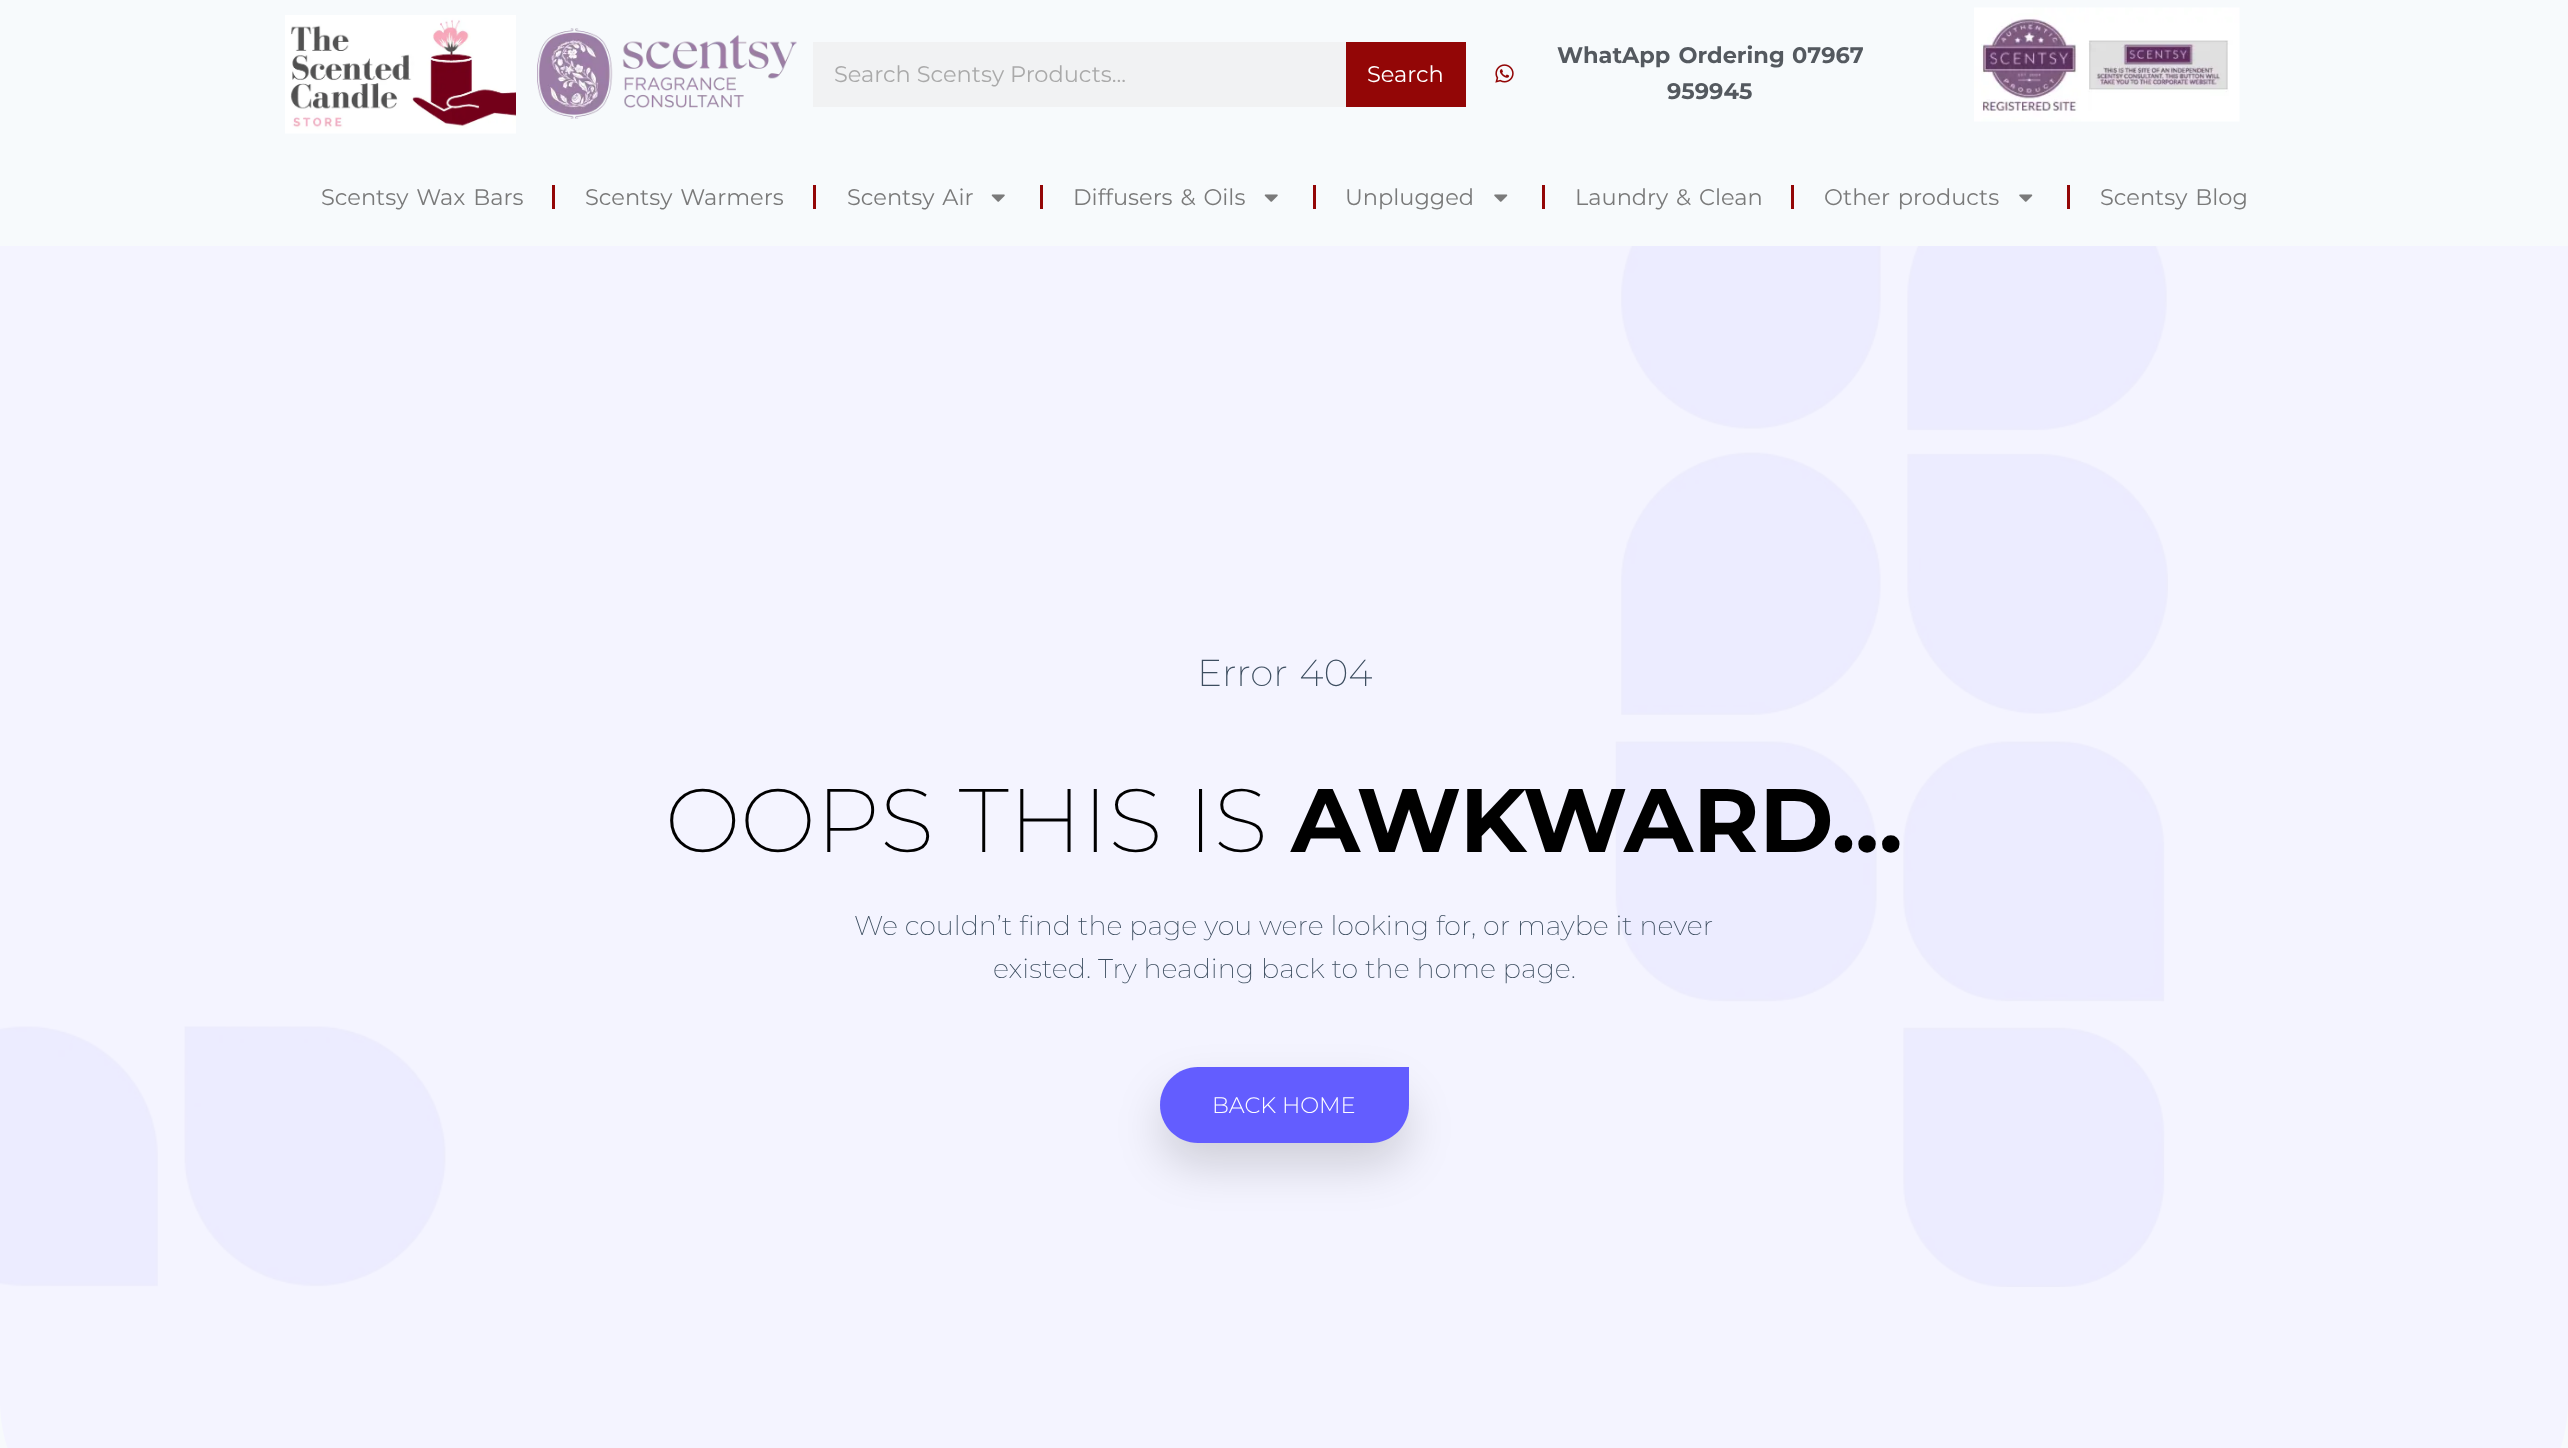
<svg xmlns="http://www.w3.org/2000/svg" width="2568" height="1448">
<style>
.a{font:22.5px Montserrat;fill:#aaa}
.b{font:22.5px Montserrat;fill:#fff}
.c{font:bold 22.5px Montserrat;fill:#54595f}
.d{font:22.5px Montserrat;fill:#7a7a7a}
.e{font:200 37.5px Montserrat;fill:#3d4e60}
.f{font:200 90px Montserrat;fill:#000}
.g{font:bold 90px Montserrat;fill:#000}
.h{font:200 27px Montserrat;fill:#3d4e60}
.i{font:300 22.5px Montserrat;fill:#fff}
</style>
<rect width="100%" height="100%" fill="#f7fafc"/>
<image href="1.png" x="285" y="15" width="231" height="119"/>
<image href="2.png" x="537" y="28" width="260" height="91"/>
<path fill="#f1f2f3" d="M813 42h533v65H813z"/>
<path fill="#930606" d="M1346 42h120v65H1346z"/>
<image href="3.png" x="1495" y="64" width="19" height="19"/>
<image href="4.png" x="1974" y="7" width="266" height="115"/>
<path fill="#930606" d="M552 185h3v24H552z"/>
<path fill="#930606" d="M813 185h3v24H813z"/>
<image href="5.png" x="991" y="194" width="14" height="8"/>
<path fill="#930606" d="M1040 185h3v24H1040z"/>
<image href="5.png" x="1264" y="194" width="14" height="8"/>
<path fill="#930606" d="M1313 185h3v24H1313z"/>
<image href="6.png" x="1494" y="194" width="14" height="8"/>
<path fill="#930606" d="M1542 185h3v24H1542z"/>
<path fill="#930606" d="M1791 185h3v24H1791z"/>
<image href="6.png" x="2019" y="194" width="14" height="8"/>
<path fill="#930606" d="M2067 185h3v24H2067z"/>
<path fill="#f4f4ff" d="M0 246h2568v1155c0 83-67 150-150 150h-2268c-83 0-150-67-150-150z"/>
<image href="7.png" x="0" y="246" width="2168" height="1041"/>
<rect fill="#00000026" filter="blur(22.5px)" x="1160" y="1089" width="249" height="77" rx="38.5"/>
<path fill="#635dff" d="M1198 1067h211v38c0 21-17 38-38 38h-173c-21 0-38-17-38-38c0-21 17-38 38-38z"/>
<text class="a" x="834" y="82">Search Scentsy Products...</text>
<text class="b" x="1367" y="82">Search</text>
<text class="c" x="1557" y="63" word-spacing="2">WhatApp Ordering</text>
<text class="c" x="1792" y="63">07967</text>
<text class="c" x="1667" y="99">959945</text>
<text class="d" x="321" y="205" word-spacing="2">Scentsy Wax Bars</text>
<text class="d" x="585" y="205" word-spacing="2">Scentsy Warmers</text>
<text class="d" x="847" y="205" word-spacing="2">Scentsy Air</text>
<text class="d" x="1073" y="205" word-spacing="2">Diffusers &amp; Oils</text>
<text class="d" x="1345" y="205">Unplugged</text>
<text class="d" x="1575" y="205" word-spacing="2">Laundry &amp; Clean</text>
<text class="d" x="1824" y="205" word-spacing="2">Other products</text>
<text class="d" x="2100" y="205" word-spacing="2">Scentsy Blog</text>
<text class="e" x="1197" y="686" word-spacing="2">Error 404</text>
<text class="f" x="665" y="852" word-spacing="2">OOPS THIS IS</text>
<text class="g" x="1291" y="852">AWKWARD...</text>
<text class="h" x="854" y="935">We couldn’t find the page you were looking for, or maybe it never</text>
<text class="h" x="993" y="978">existed. Try heading back to the home page.</text>
<text class="i" x="1212" y="1113">BACK HOME</text>
</svg>
